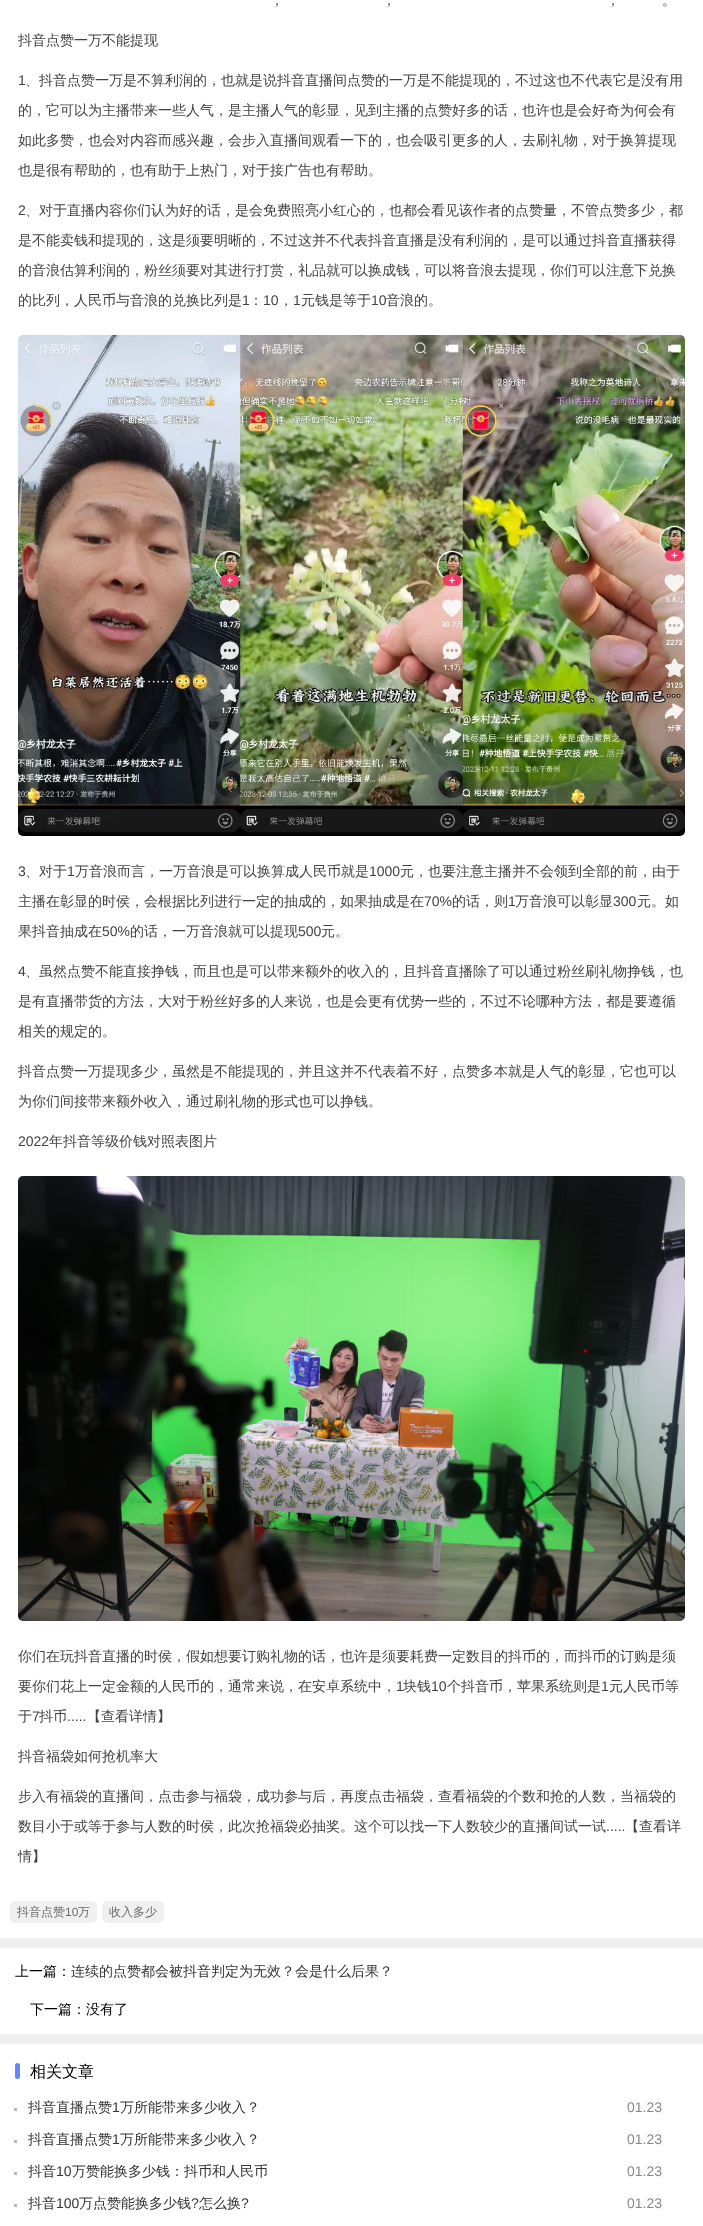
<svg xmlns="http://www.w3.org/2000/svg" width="703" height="2226">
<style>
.a{font:500 14px WenQuanYi Zen Hei;fill:#424242}
.b{font:14px Liberation Sans;fill:#424242}
.c{font:500 12px WenQuanYi Zen Hei;fill:#696969}
.d{font:12px Liberation Sans;fill:#696969}
.e{font:500 14px WenQuanYi Zen Hei;fill:#000}
.f{font:500 14px WenQuanYi Zen Hei;fill:#333}
.g{font:500 16px WenQuanYi Zen Hei;fill:#000}
.h{font:14px Liberation Sans;fill:#333}
.i{font:14px Liberation Sans;fill:#888}
</style>
<defs>
<clipPath id="clip1"><path d="M18 0h667v1881H18z"/></clipPath>
</defs>
<rect width="100%" height="100%" fill="#f0f0f0"/>
<path fill="#fff" d="M0 0h703v1938H0z"/>
<image href="1.png" x="18" y="335" width="667" height="501"/>
<image href="2.png" x="18" y="1176" width="667" height="445"/>
<rect fill="#f0f0f0" x="10" y="1901" width="87" height="22" rx="5"/>
<rect fill="#f0f0f0" x="102" y="1901" width="62" height="22" rx="5"/>
<path fill="#fff" d="M0 1948h703v86H0z"/>
<path fill="#fff" d="M0 2044h703v182H0z"/>
<rect fill="#6584ff" x="15" y="2063" width="5" height="16" rx="2.5"/>
<path fill="#b8b8b8" d="M14 2108h3v3H14z"/>
<path fill="#b8b8b8" d="M14 2140h3v3H14z"/>
<path fill="#b8b8b8" d="M14 2172h3v3H14z"/>
<path fill="#b8b8b8" d="M14 2204h3v3H14z"/>
<text class="a" x="270" y="5">，</text>
<text class="a" x="382" y="5">，</text>
<text class="a" x="606" y="5">，</text>
<text class="a" x="662" y="5">。</text>
<g clip-path="url(#clip1)">
<text class="a" x="18" y="45">抖音点赞一万不能提现</text>
</g>
<text class="b" x="18" y="85">1</text>
<text class="a" x="25" y="85">、抖音点赞一万是不算利润的，也就是说抖音直播间点赞的一万是不能提现的，不过这也不代表它是没有用</text>
<text class="a" x="18" y="115">的，它可以为主播带来一些人气，是主播人气的彰显，见到主播的点赞好多的话，也许也是会好奇为何会有</text>
<text class="a" x="18" y="145">如此多赞，也会对内容而感兴趣，会步入直播间观看一下的，也会吸引更多的人，去刷礼物，对于换算提现</text>
<text class="a" x="18" y="175">也是很有帮助的，也有助于上热门，对于接广告也有帮助。</text>
<text class="b" x="18" y="215">2</text>
<text class="a" x="25" y="215">、对于直播内容你们认为好的话，是会免费照亮小红心的，也都会看见该作者的点赞量，不管点赞多少，都</text>
<text class="a" x="18" y="245">是不能卖钱和提现的，这是须要明晰的，不过这并不代表抖音直播是没有利润的，是可以通过抖音直播获得</text>
<text class="a" x="18" y="275">的音浪估算利润的，粉丝须要对其进行打赏，礼品就可以换成钱，可以将音浪去提现，你们可以注意下兑换</text>
<text class="a" x="18" y="305">的比列，人民币与音浪的兑换比列是</text>
<text class="b" x="242" y="305">1</text>
<text class="a" x="249" y="305">：</text>
<text class="b" x="263" y="305">10</text>
<text class="a" x="279" y="305">，</text>
<text class="b" x="293" y="305">1</text>
<text class="a" x="301" y="305">元钱是等于</text>
<text class="b" x="371" y="305">10</text>
<text class="a" x="386" y="305">音浪的。</text>
<text class="b" x="18" y="876">3</text>
<text class="a" x="25" y="876">、对于</text>
<text class="b" x="67" y="876">1</text>
<text class="a" x="75" y="876">万音浪而言，一万音浪是可以换算成人民币就是</text>
<text class="b" x="369" y="876">1000</text>
<text class="a" x="400" y="876">元，也要注意主播并不会领到全部的前，由于</text>
<text class="a" x="18" y="906">主播在彰显的时侯，会根据比列进行一定的抽成的，如果抽成是在</text>
<text class="b" x="424" y="906">70%</text>
<text class="a" x="452" y="906">的话，则</text>
<text class="b" x="508" y="906">1</text>
<text class="a" x="515" y="906">万音浪可以彰显</text>
<text class="b" x="613" y="906">300</text>
<text class="a" x="637" y="906">元。如</text>
<text class="a" x="18" y="936">果抖音抽成在</text>
<text class="b" x="102" y="936">50%</text>
<text class="a" x="130" y="936">的话，一万音浪就可以提现</text>
<text class="b" x="298" y="936">500</text>
<text class="a" x="321" y="936">元。</text>
<text class="b" x="18" y="976">4</text>
<text class="a" x="25" y="976">、虽然点赞不能直接挣钱，而且也是可以带来额外的收入的，且抖音直播除了可以通过粉丝刷礼物挣钱，也</text>
<text class="a" x="18" y="1006">是有直播带货的方法，大对于粉丝好多的人来说，也是会更有优势一些的，不过不论哪种方法，都是要遵循</text>
<text class="a" x="18" y="1036">相关的规定的。</text>
<g clip-path="url(#clip1)">
<text class="a" x="18" y="1076">抖音点赞一万提现多少，虽然是不能提现的，并且这并不代表着不好，点赞多本就是人气的彰显，它也可以</text>
</g>
<text class="a" x="18" y="1106">为你们间接带来额外收入，通过刷礼物的形式也可以挣钱。</text>
<text class="b" x="18" y="1146">2022</text>
<text class="a" x="49" y="1146">年抖音等级价钱对照表图片</text>
<text class="a" x="18" y="1661">你们在玩抖音直播的时侯，假如想要订购礼物的话，也许是须要耗费一定数目的抖币的，而抖币的订购是须</text>
<text class="a" x="18" y="1691">要你们花上一定金额的人民币的，通常来说，在安卓系统中，</text>
<text class="b" x="396" y="1691">1</text>
<text class="a" x="403" y="1691">块钱</text>
<text class="b" x="431" y="1691">10</text>
<text class="a" x="447" y="1691">个抖音币，苹果系统则是</text>
<text class="b" x="601" y="1691">1</text>
<text class="a" x="609" y="1691">元人民币等</text>
<text class="a" x="18" y="1721">于</text>
<text class="b" x="32" y="1721">7</text>
<text class="a" x="39" y="1721">抖币</text>
<text class="b" x="67" y="1721">.....</text>
<text class="a" x="87" y="1721">【查看详情】</text>
<g clip-path="url(#clip1)">
<text class="a" x="18" y="1761">抖音福袋如何抢机率大</text>
</g>
<text class="a" x="18" y="1801">步入有福袋的直播间，点击参与福袋，成功参与后，再度点击福袋，查看福袋的个数和抢的人数，当福袋的</text>
<text class="a" x="18" y="1831">数目小于或等于参与人数的时侯，此次抢福袋必抽奖。这个可以找一下人数较少的直播间试一试</text>
<text class="b" x="606" y="1831">.....</text>
<text class="a" x="625" y="1831">【查看详</text>
<text class="a" x="18" y="1861">情】</text>
<text class="c" x="17" y="1916">抖音点赞</text>
<text class="d" x="65" y="1916">10</text>
<text class="c" x="78" y="1916">万</text>
<text class="c" x="109" y="1916">收入多少</text>
<text class="e" x="15" y="1976">上一篇：</text>
<text class="f" x="71" y="1976">连续的点赞都会被抖音判定为无效？会是什么后果？</text>
<text class="e" x="30" y="2014">下一篇：没有了</text>
<text class="g" x="30" y="2077">相关文章</text>
<text class="f" x="28" y="2112">抖音直播点赞</text>
<text class="h" x="112" y="2112">1</text>
<text class="f" x="120" y="2112">万所能带来多少收入？</text>
<text class="i" x="627" y="2112">01.23</text>
<text class="f" x="28" y="2144">抖音直播点赞</text>
<text class="h" x="112" y="2144">1</text>
<text class="f" x="120" y="2144">万所能带来多少收入？</text>
<text class="i" x="627" y="2144">01.23</text>
<text class="f" x="28" y="2176">抖音</text>
<text class="h" x="56" y="2176">10</text>
<text class="f" x="72" y="2176">万赞能换多少钱：抖币和人民币</text>
<text class="i" x="627" y="2176">01.23</text>
<text class="f" x="28" y="2208">抖音</text>
<text class="h" x="56" y="2208">100</text>
<text class="f" x="79" y="2208">万点赞能换多少钱</text>
<text class="h" x="191" y="2208">?</text>
<text class="f" x="199" y="2208">怎么换</text>
<text class="h" x="241" y="2208">?</text>
<text class="i" x="627" y="2208">01.23</text>
</svg>
